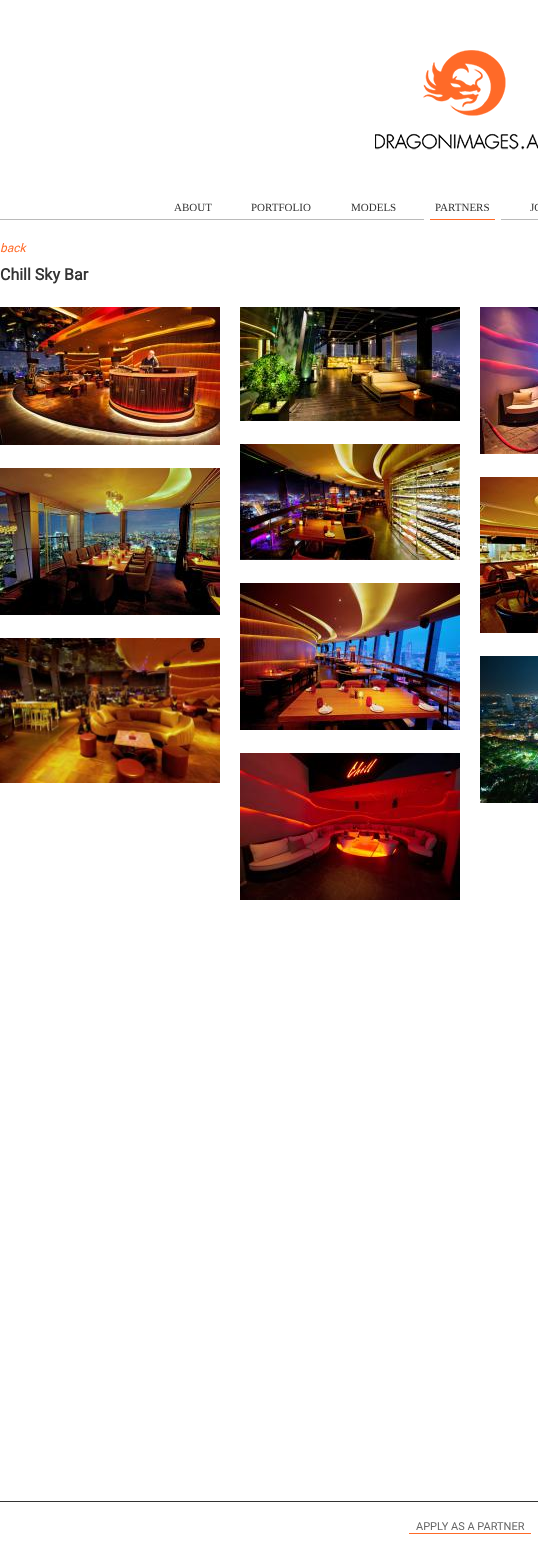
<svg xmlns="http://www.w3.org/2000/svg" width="538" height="1552">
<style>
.a{font:11px Liberation Serif;fill:#333}
.b{font:italic 12px Roboto;fill:#ff6a28}
.c{font:bold 16px Roboto;fill:#333}
.d{font:11px Roboto;fill:#666}
</style>
<rect width="100%" height="100%" fill="#fff"/>
<image href="1.png" x="375" y="50" width="163" height="100"/>
<path fill="#bababa" d="M0 219h538v1H0z"/>
<path fill="#fff" d="M424 219h77v1H424z"/>
<path fill="#ff6a28" d="M430 219h65v1H430z"/>
<image href="2.png" x="0" y="307" width="220" height="138"/>
<image href="3.png" x="240" y="307" width="220" height="114"/>
<image href="4.png" x="480" y="307" width="58" height="147"/>
<image href="5.png" x="0" y="468" width="220" height="147"/>
<image href="6.png" x="240" y="444" width="220" height="116"/>
<image href="7.png" x="480" y="477" width="58" height="156"/>
<image href="8.png" x="0" y="638" width="220" height="145"/>
<image href="9.png" x="240" y="583" width="220" height="147"/>
<image href="10.png" x="480" y="656" width="58" height="147"/>
<image href="11.png" x="240" y="753" width="220" height="147"/>
<path fill="#333" d="M0 1501h538v1H0z"/>
<path fill="#ff6a28" d="M409 1533h122v1H409z"/>
<text class="a" x="174" y="211">ABOUT</text>
<text class="a" x="251" y="211">PORTFOLIO</text>
<text class="a" x="351" y="211">MODELS</text>
<text class="a" x="435" y="211">PARTNERS</text>
<text class="a" x="530" y="211">JO</text>
<text class="b" x="0" y="252">back</text>
<text class="c" x="0" y="280">Chill Sky Bar</text>
<text class="d" x="416" y="1530">APPLY AS A PARTNER</text>
</svg>
